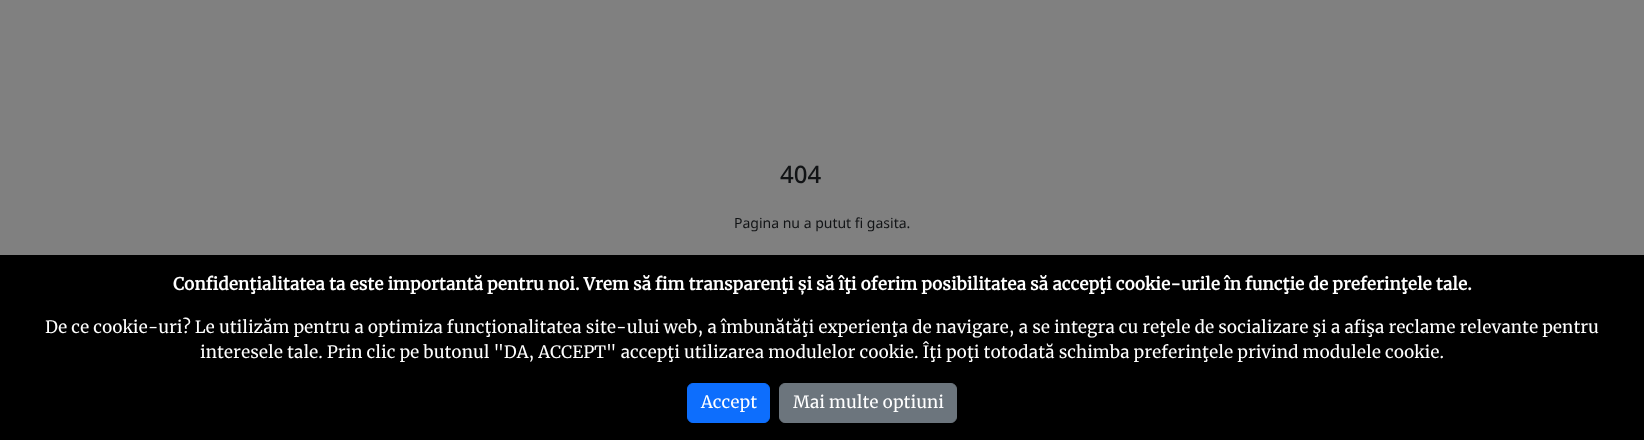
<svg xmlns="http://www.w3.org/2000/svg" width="1644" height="440">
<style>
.a{font:500 24px Noto Sans;fill:#111315}
.b{font:14px Noto Sans;fill:#111315}
.c{font:bold 17px Merriweather;fill:#fff}
.d{font:17px Merriweather;fill:#fff}
</style>
<rect width="100%" height="100%" fill="#808080"/>
<path fill="#000" d="M0 255h1644v185H0z"/>
<rect fill="#0d6efd" stroke="#0d6efd" x="687.5" y="383.5" width="82" height="39" rx="5.5"/>
<rect fill="#6c757d" stroke="#6c757d" x="779.5" y="383.5" width="177" height="39" rx="5.5"/>
<text class="a" x="780" y="183">404</text>
<text class="b" x="734" y="228">Pagina nu a putut fi gasita.</text>
<text class="c" x="173" y="290">Confidenţialitatea ta este importantă pentru noi. Vrem să fim transparenţi și să îţi oferim posibilitatea să accepţi cookie-urile în funcţie de preferinţele tale.</text>
<text class="d" x="45" y="333">De ce cookie-uri? Le utilizăm pentru a optimiza funcţionalitatea site-ului web, a îmbunătăţi experienţa de navigare, a se integra cu reţele de socializare şi a afişa reclame relevante pentru</text>
<text class="d" x="200" y="358">interesele tale. Prin clic pe butonul "DA, ACCEPT" accepţi utilizarea modulelor cookie. Îţi poţi totodată schimba preferinţele privind modulele cookie.</text>
<text class="d" x="701" y="408">Accept</text>
<text class="d" x="793" y="408">Mai multe optiuni</text>
</svg>
